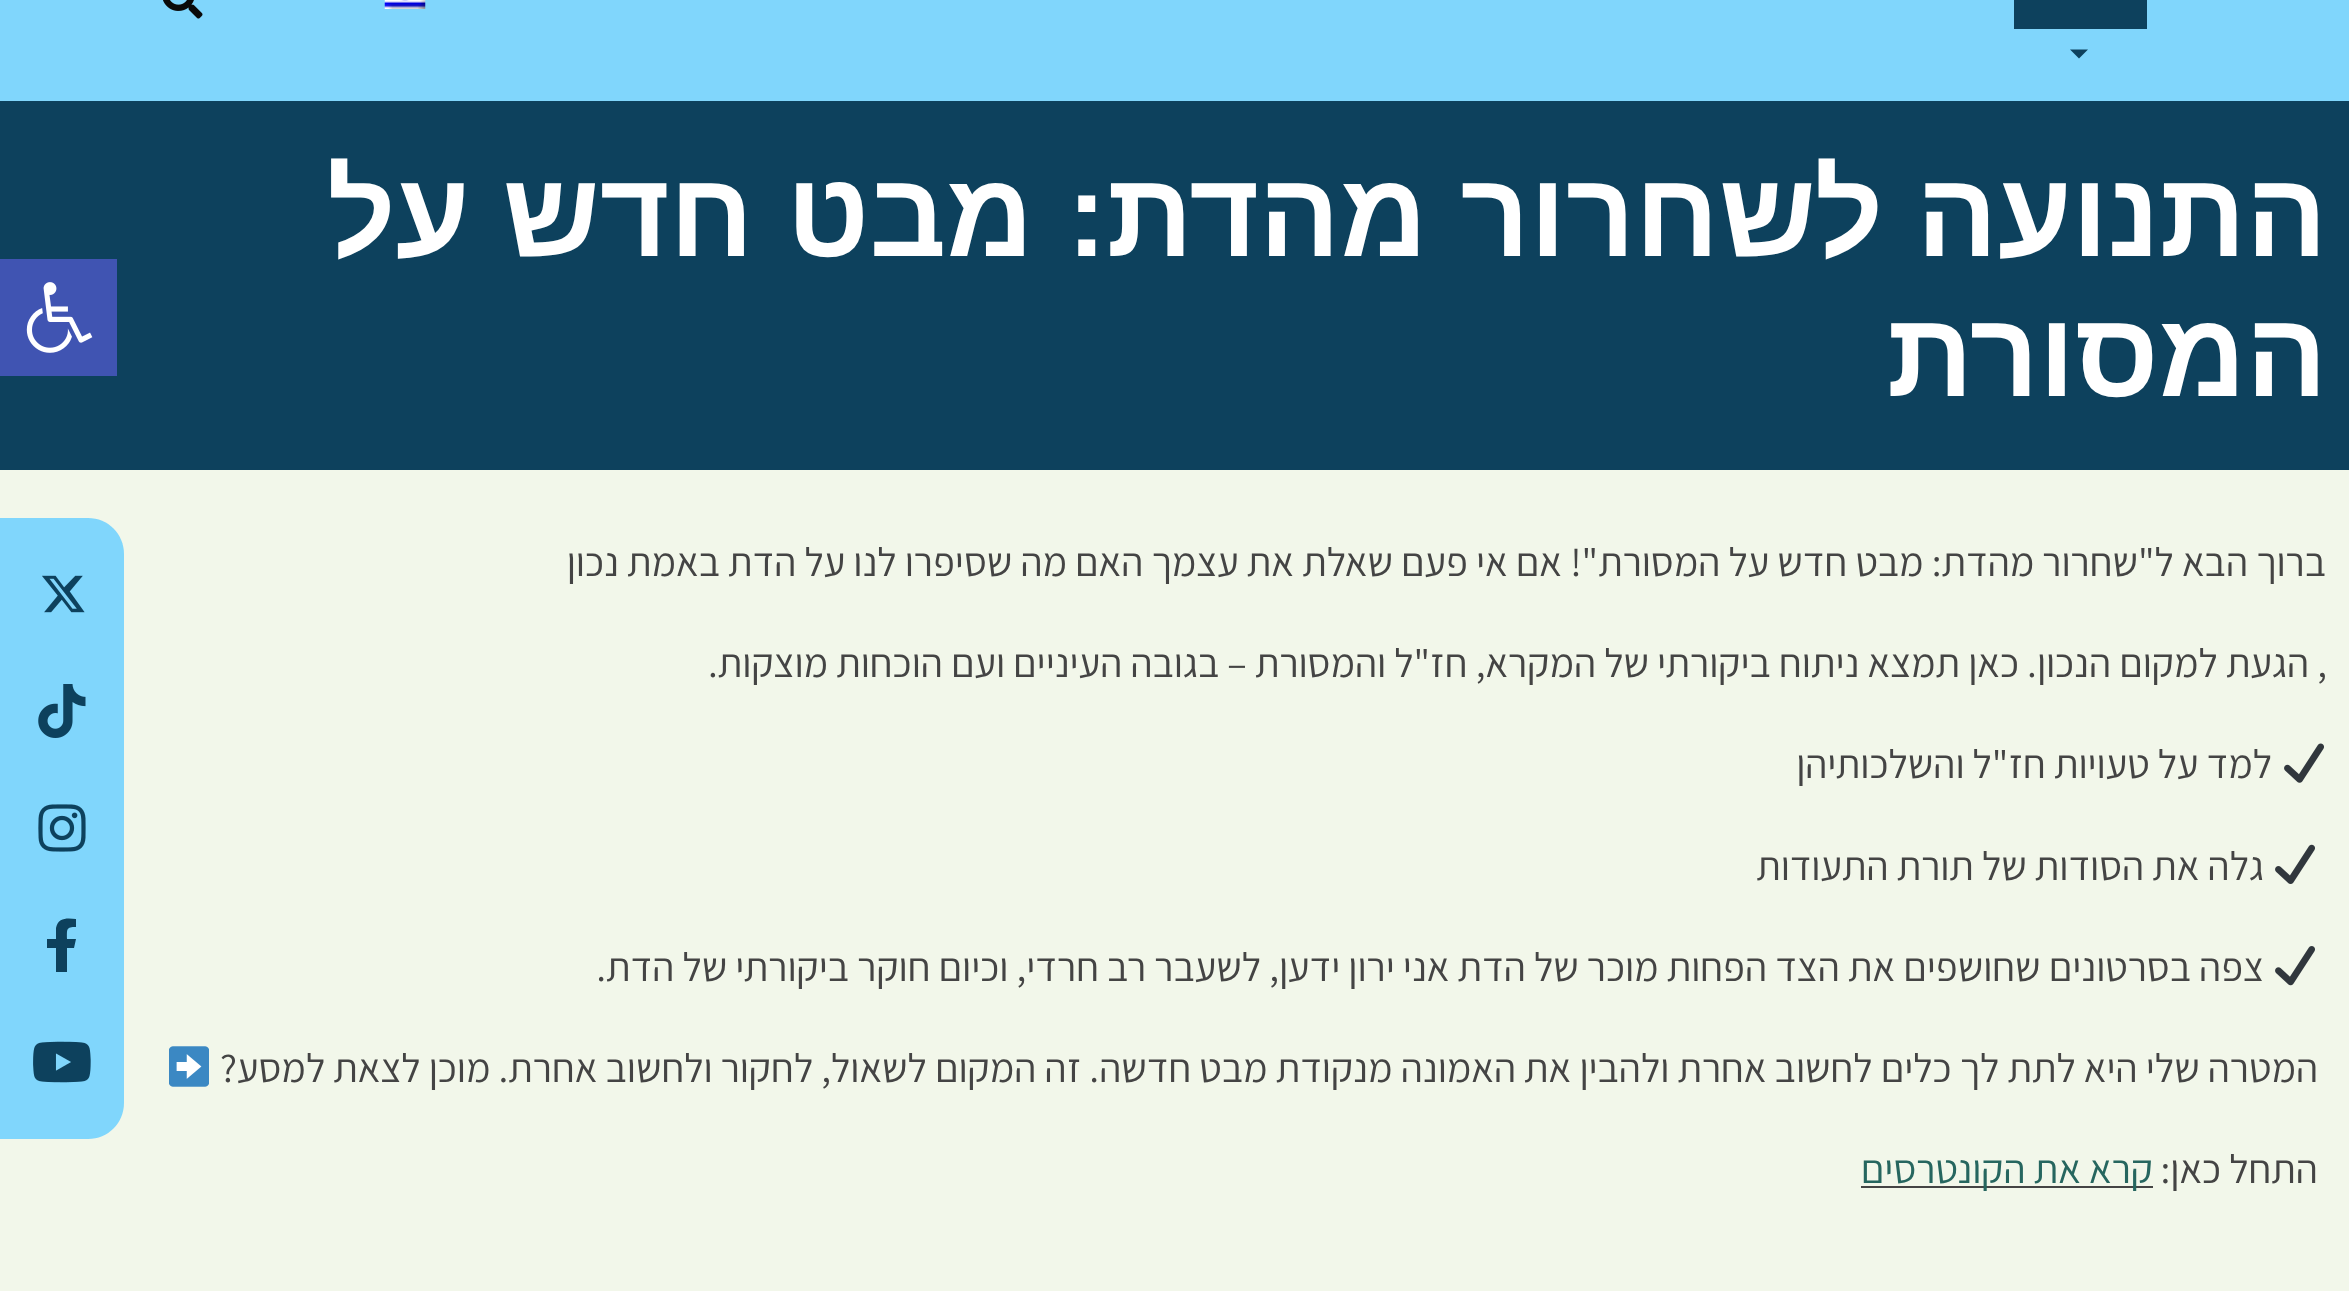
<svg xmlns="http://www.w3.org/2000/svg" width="2349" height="1291">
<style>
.a{font:bold 120px Liberation Sans;direction:rtl;fill:#fff}
.b{font:40.5px Assistant;direction:rtl;fill:#444}
.c{font:40.5px Assistant;direction:rtl;fill:#26665f}
</style>
<rect width="100%" height="100%" fill="#80d6fc"/>
<path fill="#0d415d" d="M2014 0h133v29H2014z"/>
<path fill="#0d415d" d="M2070 49.5h18l-9 9z"/>
<image href="1.png" x="384" y="0" width="42" height="9"/>
<image href="2.png" x="163" y="0" width="40" height="19"/>
<path fill="#f2f7ea" d="M0 470h2349v821H0z"/>
<path fill="#0d415d" d="M0 101h2349v369H0z"/>
<image href="3.png" x="2284" y="743" width="40" height="40"/>
<image href="4.png" x="2275" y="844" width="40" height="40"/>
<image href="5.png" x="2275" y="946" width="40" height="40"/>
<image href="6.png" x="169" y="1046" width="40" height="41"/>
<path fill="#444" d="M1861 1186h292v2H1861z"/>
<path fill="#4054b2" d="M0 259h117v117H0z"/>
<image href="7.png" x="26" y="282" width="67" height="71"/>
<path fill="#80d6fc" d="M0 518h88c20 0 36 16 36 36v549c0 20-16 36-36 36h-88z"/>
<image href="8.png" x="42" y="575" width="43" height="38"/>
<image href="9.png" x="38" y="684" width="48" height="54"/>
<image href="10.png" x="38" y="804" width="48" height="48"/>
<path fill="#0d415d" d="M74 948h-7v24h-11v-24h-9v-9h9v-11c2-11 12-10 20-9v8c-10 0-9 2-9 12h9z"/>
<image href="11.png" x="33" y="1041" width="58" height="42"/>
<text class="a" x="2327" y="256">התנועה לשחרור מהדת: מבט חדש על</text>
<text class="a" x="2327" y="396">המסורת</text>
<text class="b" x="2326" y="576">ברוך הבא ל"שחרור מהדת: מבט חדש על המסורת"! אם אי פעם שאלת את עצמך האם מה שסיפרו לנו על הדת באמת נכון</text>
<text class="b" x="2327" y="677">, הגעת למקום הנכון. כאן תמצא ניתוח ביקורתי של המקרא, חז"ל והמסורת – בגובה העיניים ועם הוכחות מוצקות.</text>
<text class="b" x="2272" y="778">למד על טעויות חז"ל והשלכותיהן</text>
<text class="b" x="2264" y="880">גלה את הסודות של תורת התעודות</text>
<text class="b" x="2264" y="981">צפה בסרטונים שחושפים את הצד הפחות מוכר של הדת אני ירון ידען, לשעבר רב חרדי, וכיום חוקר ביקורתי של הדת.</text>
<text class="b" x="2318" y="1082">המטרה שלי היא לתת לך כלים לחשוב אחרת ולהבין את האמונה מנקודת מבט חדשה. זה המקום לשאול, לחקור ולחשוב אחרת. מוכן לצאת למסע?</text>
<text class="b" x="2318" y="1183">התחל כאן:</text>
<text class="c" x="2153" y="1183">קרא את הקונטרסים</text>
</svg>
